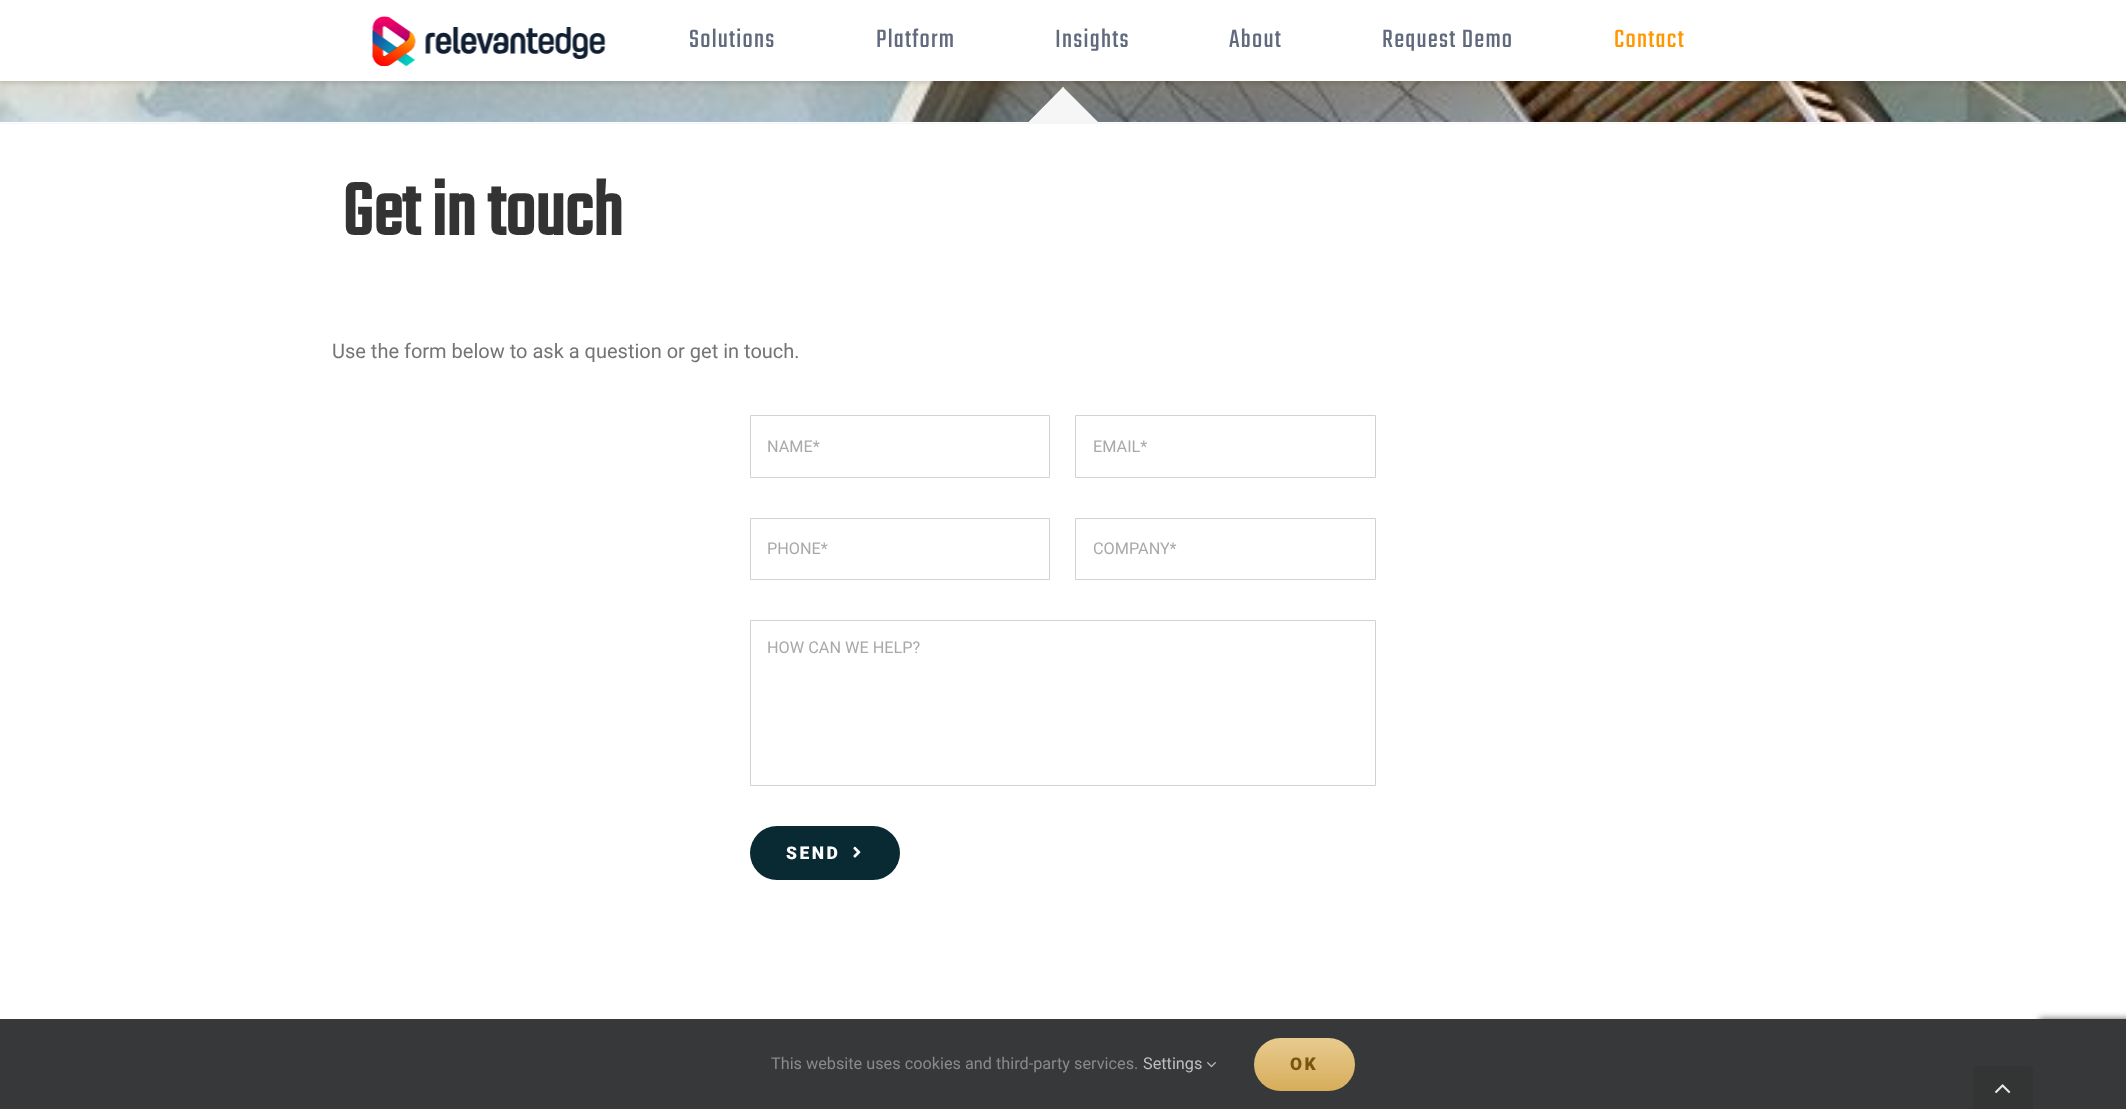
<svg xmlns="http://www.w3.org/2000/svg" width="2126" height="1109">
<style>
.a{font:27.5px Teko;letter-spacing:1.25px;fill:#616a7d}
.b{font:27.5px Teko;letter-spacing:1.25px;fill:#ff9800}
.c{font:bold 81px Teko;fill:#333}
.d{font:20px Roboto;fill:#747474}
.e{font:16.25px Roboto;fill:#aaa9a9}
.f{font:900 17.5px Roboto;letter-spacing:2.5px;fill:#fff}
.g{font:16.25px Roboto;fill:#8c8989}
.h{font:16.25px Roboto;fill:#bfbfbf}
.i{font:900 17.5px Roboto;letter-spacing:2.5px;fill:#785510}
</style>
<defs>
<linearGradient id="g1" gradientUnits="userSpaceOnUse" x1="1304" y1="1091" x2="1304" y2="1038"><stop offset="0" stop-color="#d6ad5a"/><stop offset="1" stop-color="#e8cb90"/></linearGradient>
</defs>
<rect width="100%" height="100%" fill="#fff"/>
<image href="2.png" x="0" y="81" width="2126" height="41"/>
<path fill="#f6f6f6" d="M0 123h2126v1H0z"/>
<path fill="#f6f6f6" d="M1099 124h-72l36-36z"/>
<path fill="#f6f6f6" d="M1064 88l-35.5 35.5l-.5-1l35-35.5z"/>
<path fill="#f6f6f6" d="M1098.5 122.5l-1 1l-35.5-35.5l1-1z"/>
<path fill="#0000001f" filter="blur(2px)" d="M0 1h2126v82H0z"/>
<path fill="#fff" d="M0 0h2126v81H0z"/>
<image href="1.png" x="372" y="16" width="234" height="50"/>
<path fill="none" stroke="#d2d2d2" d="M750.5 415.5h299v62H750.5z"/>
<path fill="none" stroke="#d2d2d2" d="M1075.5 415.5h300v62H1075.5z"/>
<path fill="none" stroke="#d2d2d2" d="M750.5 518.5h299v61H750.5z"/>
<path fill="none" stroke="#d2d2d2" d="M1075.5 518.5h300v61H1075.5z"/>
<path fill="none" stroke="#d2d2d2" d="M750.5 620.5h625v165H750.5z"/>
<rect fill="#092933" x="750" y="826" width="150" height="54" rx="27"/>
<image href="3.png" x="853" y="846" width="8" height="12"/>
<rect fill="#808080" filter="blur(3px)" x="2039" y="1018" width="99" height="75" rx="2.5"/>
<path fill="#363839" d="M0 1019h2126v90H0z"/>
<image href="4.png" x="1207" y="1062" width="9" height="6"/>
<rect fill="url(#g1)" x="1254" y="1038" width="101" height="53" rx="26.5"/>
<path fill="#333434" d="M1978 1066h50c3 0 5 2 5 5v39h-60v-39c0-3 2-5 5-5z"/>
<image href="5.png" x="1995" y="1084" width="16" height="10"/>
<text class="a" x="689" y="47">Solutions</text>
<text class="a" x="876" y="47">Platform</text>
<text class="a" x="1055" y="47">Insights</text>
<text class="a" x="1229" y="47">About</text>
<text class="a" x="1382" y="47">Request Demo</text>
<text class="b" x="1614" y="47">Contact</text>
<text class="c" x="342" y="235">Get in touch</text>
<text class="d" x="332" y="358">Use the form below to ask a question or get in touch.</text>
<text class="e" x="767" y="452">NAME*</text>
<text class="e" x="1093" y="452">EMAIL*</text>
<text class="e" x="767" y="554">PHONE*</text>
<text class="e" x="1093" y="554">COMPANY*</text>
<text class="e" x="767" y="653">HOW CAN WE HELP?</text>
<text class="f" x="786" y="859">SEND</text>
<text class="g" x="771" y="1069">This website uses cookies and third-party services.</text>
<text class="h" x="1143" y="1069">Settings</text>
<text class="i" x="1290" y="1070">OK</text>
</svg>
